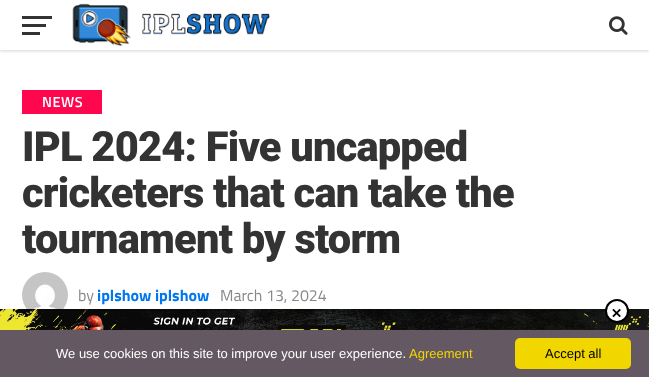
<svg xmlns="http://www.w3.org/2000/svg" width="649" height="377">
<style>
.a{font:600 14.5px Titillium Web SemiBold;letter-spacing:0.5px;fill:#fff}
.b{font:900 41.6px Roboto;letter-spacing:-0.8px;fill:#333}
.c{font:16px Titillium Web;fill:#888}
.d{font:bold 16px Titillium Web;fill:#07e}
.e{font:600 20px Titillium Web SemiBold;fill:#000}
.f{font:13px Liberation Sans;fill:#fff}
.g{font:13px Liberation Sans;fill:#f1d600}
.h{font:13px Liberation Sans;fill:#000}
</style>
<defs>
<clipPath id="clip1"><path d="M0 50h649v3H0z"/></clipPath>
</defs>
<rect width="100%" height="100%" fill="#fff"/>
<g clip-path="url(#clip1)">
<path fill="#0000001a" filter="blur(1px)" d="M0 2h649v50H0z"/>
</g>
<path fill="#333" d="M22 16h30v3H22z"/>
<path fill="#333" d="M22 24h24v3H22z"/>
<path fill="#333" d="M22 32h18v3H22z"/>
<image href="1.png" x="72" y="3" width="198" height="43"/>
<image href="2.png" x="609" y="16" width="19" height="19"/>
<path fill="#fe074e" d="M22 90h80v24H22z"/>
<image href="3.png" x="22" y="272" width="46" height="37"/>
<image href="4.png" x="0" y="309" width="649" height="21"/>
<circle fill="#fff" stroke="#000" stroke-width="2" cx="617" cy="311" r="11"/>
<path fill="#645862" d="M0 330h649v47H0z"/>
<rect fill="#f1d600" x="515" y="338" width="116" height="31" rx="5"/>
<text class="a" x="42" y="107">NEWS</text>
<text class="b" x="22" y="161">IPL 2024: Five uncapped</text>
<text class="b" x="22" y="207">cricketers that can take the</text>
<text class="b" x="22" y="253">tournament by storm</text>
<text class="c" x="78" y="301">by</text>
<text class="d" x="97" y="301">iplshow iplshow</text>
<text class="c" x="220" y="301">March 13, 2024</text>
<text class="e" x="611" y="318">×</text>
<text class="f" x="56" y="358">We use cookies on this site to improve your user experience.</text>
<text class="g" x="409" y="358">Agreement</text>
<text class="h" x="545" y="358">Accept all</text>
</svg>
